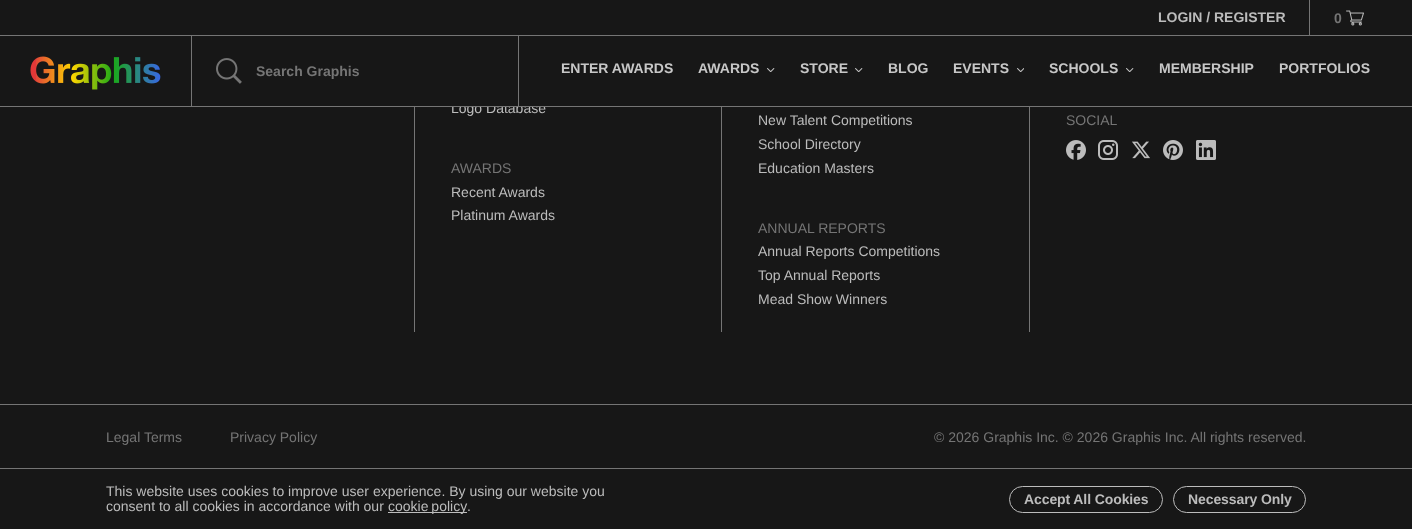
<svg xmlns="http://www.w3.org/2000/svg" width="1412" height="529">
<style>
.a{font:bold 14px Liberation Sans;fill:#bcbcbc}
.b{font:bold 14px Liberation Sans;fill:#757575}
.c{font:bold 14px Liberation Sans;fill:#c7c7c7}
.d{font:14px Liberation Sans;fill:#bcbcbc}
.e{font:14px Liberation Sans;fill:#757575}
.f{font:bold 14px Liberation Sans;letter-spacing:-0.1px;fill:#bcbcbc}
</style>
<rect width="100%" height="100%" fill="#171717"/>
<path fill="#757575" d="M1309 0h1v35H1309z"/>
<image href="1.png" x="1346" y="10" width="18" height="16"/>
<path fill="#757575" d="M0 35h1412v1H0z"/>
<image href="2.png" x="30" y="56" width="131" height="34"/>
<path fill="#757575" d="M191 36h1v70H191z"/>
<image href="3.png" x="216" y="58" width="26" height="26"/>
<image href="4.png" x="767" y="68" width="8" height="4"/>
<image href="4.png" x="855" y="68" width="8" height="4"/>
<image href="5.png" x="1017" y="68" width="7" height="4"/>
<image href="4.png" x="1126" y="68" width="8" height="4"/>
<path fill="#757575" d="M0 404h1412v1H0z"/>
<path fill="#757575" d="M414 107h1v225H414z"/>
<path fill="#757575" d="M721 107h1v225H721z"/>
<path fill="#757575" d="M1029 107h1v225H1029z"/>
<image href="6.png" x="1066" y="140" width="20" height="20"/>
<image href="7.png" x="1098" y="140" width="20" height="20"/>
<image href="8.png" x="1132" y="141" width="18" height="18"/>
<image href="9.png" x="1163" y="140" width="20" height="20"/>
<image href="10.png" x="1196" y="140" width="20" height="20"/>
<path fill="#757575" d="M0 468h1412v1H0z"/>
<path fill="#bcbcbc" d="M388 512h79v1H388z"/>
<rect fill="none" stroke="#bcbcbc" x="1009.5" y="486.5" width="153" height="26" rx="13"/>
<rect fill="none" stroke="#bcbcbc" x="1173.5" y="486.5" width="132" height="26" rx="13"/>
<text class="a" x="1158" y="22">LOGIN / REGISTER</text>
<text class="b" x="1334" y="23">0</text>
<text class="b" x="256" y="76">Search Graphis</text>
<text class="c" x="561" y="73">ENTER AWARDS</text>
<text class="c" x="698" y="73">AWARDS</text>
<text class="c" x="800" y="73">STORE</text>
<text class="c" x="888" y="73">BLOG</text>
<text class="c" x="953" y="73">EVENTS</text>
<text class="c" x="1049" y="73">SCHOOLS</text>
<text class="c" x="1159" y="73">MEMBERSHIP</text>
<text class="c" x="1279" y="73">PORTFOLIOS</text>
<text class="d" x="451" y="113">Logo Database</text>
<path fill="#171717" d="M451 102h93v4H451z"/>
<path fill="#757575" d="M518 36h1v70H518z"/>
<path fill="#757575" d="M0 106h1412v1H0z"/>
<text class="e" x="451" y="173">AWARDS</text>
<text class="d" x="451" y="197">Recent Awards</text>
<text class="d" x="451" y="220">Platinum Awards</text>
<text class="d" x="758" y="125">New Talent Competitions</text>
<text class="d" x="758" y="149">School Directory</text>
<text class="d" x="758" y="173">Education Masters</text>
<text class="e" x="758" y="233">ANNUAL REPORTS</text>
<text class="d" x="758" y="256">Annual Reports Competitions</text>
<text class="d" x="758" y="280">Top Annual Reports</text>
<text class="d" x="758" y="304">Mead Show Winners</text>
<text class="e" x="1066" y="125">SOCIAL</text>
<text class="e" x="106" y="442">Legal Terms</text>
<text class="e" x="230" y="442">Privacy Policy</text>
<text class="e" x="934" y="442">© 2026 Graphis Inc. © 2026 Graphis Inc. All rights reserved.</text>
<text class="d" x="106" y="496">This website uses cookies to improve user experience. By using our website you</text>
<text class="d" x="106" y="511">consent to all cookies in accordance with our</text>
<text class="d" x="388" y="511" word-spacing="-1">cookie policy</text>
<text class="d" x="467" y="511">.</text>
<text class="f" x="1024" y="504">Accept All Cookies</text>
<text class="f" x="1188" y="504">Necessary Only</text>
</svg>
